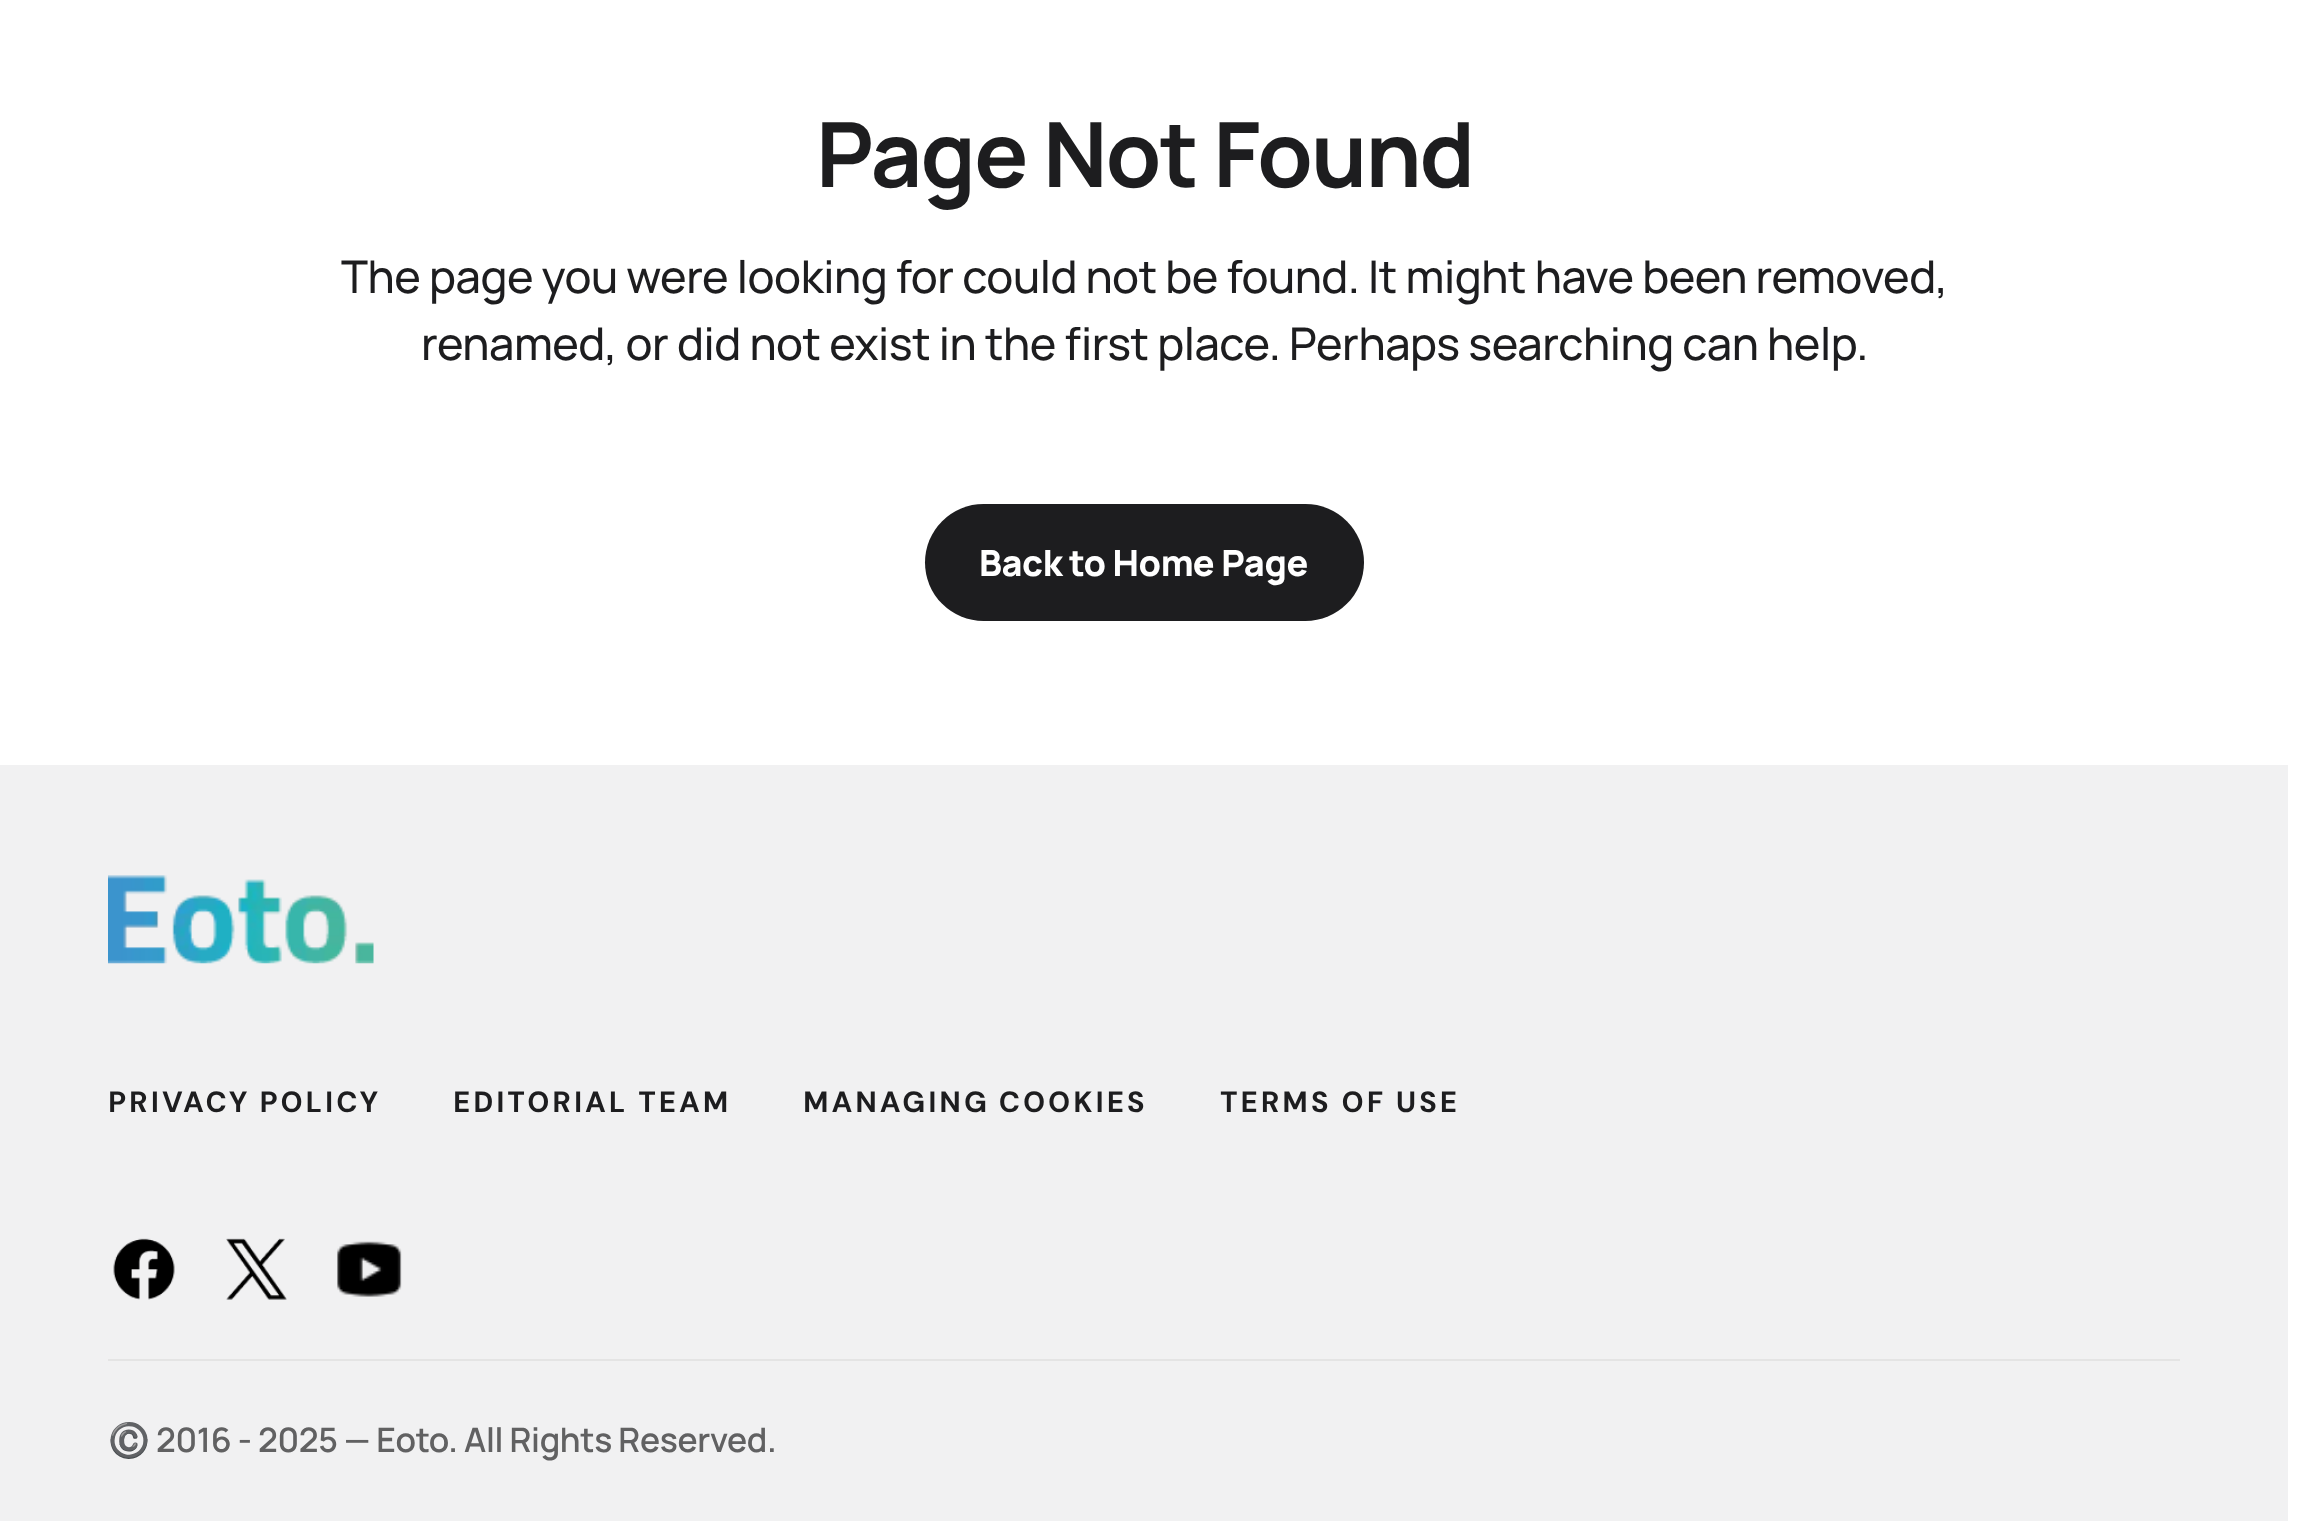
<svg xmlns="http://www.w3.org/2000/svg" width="2320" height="1521">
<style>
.a{font:bold 90px Manrope;letter-spacing:-1.75px;fill:#1d1d1f}
.b{font:500 45px Manrope;letter-spacing:-0.45px;fill:#1d1d1f}
.c{font:800 36px Manrope;letter-spacing:-0.4px;fill:#fff}
.d{font:bold 29.25px DM Sans;letter-spacing:2.9px;fill:#1d1d1f}
.e{font:bold 33.75px Noto Color Emoji;letter-spacing:-0.35px;fill:#616162}
.f{font:600 33.75px Manrope;letter-spacing:-0.35px;fill:#616162}
</style>
<rect width="100%" height="100%" fill="#fff"/>
<rect fill="#1d1d1f" x="925" y="504" width="439" height="117" rx="58.5"/>
<path fill="#f1f1f2" d="M0 765h2288v756H0z"/>
<image href="1.png" x="108" y="875" width="266" height="89"/>
<image href="2.png" x="113" y="1238" width="62" height="62"/>
<image href="3.png" x="226" y="1238" width="61" height="62"/>
<image href="4.png" x="337" y="1241" width="65" height="56"/>
<path fill="#e4e4e4" d="M108 1359h2072v2H108z"/>
<text class="a" x="816" y="187">Page Not Found</text>
<text class="b" x="341" y="293">The page you were looking for could not be found. It might have been removed,</text>
<text class="b" x="421" y="360">renamed, or did not exist in the first place. Perhaps searching can help.</text>
<text class="c" x="979" y="576">Back to Home Page</text>
<text class="d" x="108" y="1112" word-spacing="-1">PRIVACY POLICY</text>
<text class="d" x="453" y="1112">EDITORIAL TEAM</text>
<text class="d" x="803" y="1112" word-spacing="-1">MANAGING COOKIES</text>
<text class="d" x="1220" y="1112">TERMS OF USE</text>
<text class="e" x="108" y="1452">©️</text>
<text class="f" x="156" y="1452">2016 - 2025 — Eoto. All Rights Reserved.</text>
</svg>
